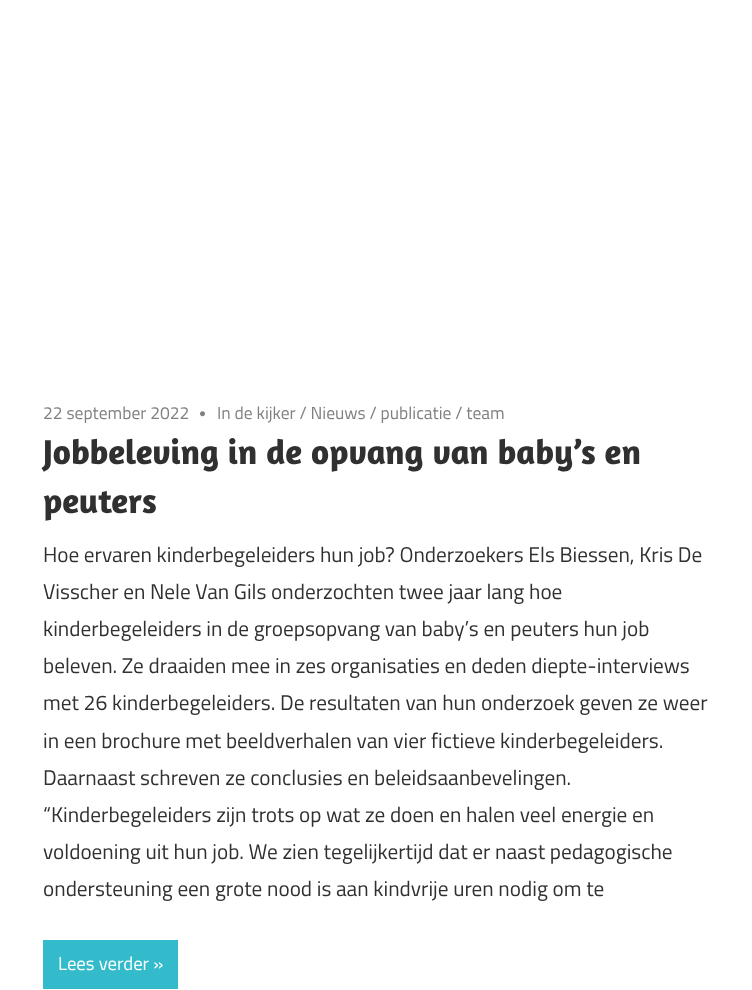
<svg xmlns="http://www.w3.org/2000/svg" width="752" height="990">
<style>
.a{font:17.5px Titillium Web;fill:#808080}
.b{font:bold 35px Amaranth;fill:#303030}
.c{font:21.25px Titillium Web;fill:#303030}
.d{font:18.75px Titillium Web;fill:#fff}
</style>
<rect width="100%" height="100%" fill="#fff"/>
<image href="1.png" x="200" y="411" width="5" height="6"/>
<path fill="#3bc" d="M43 940h135v49H43z"/>
<text class="a" x="43" y="419">22 september 2022</text>
<text class="a" x="217" y="419">In de kijker / Nieuws / publicatie / team</text>
<text class="b" x="43" y="464">Jobbeleving in de opvang van baby’s en</text>
<text class="b" x="43" y="513">peuters</text>
<text class="c" x="43" y="562">Hoe ervaren kinderbegeleiders hun job? Onderzoekers Els Biessen, Kris De</text>
<text class="c" x="43" y="599">Visscher en Nele Van Gils onderzochten twee jaar lang hoe</text>
<text class="c" x="43" y="636">kinderbegeleiders in de groepsopvang van baby’s en peuters hun job</text>
<text class="c" x="43" y="673">beleven. Ze draaiden mee in zes organisaties en deden diepte-interviews</text>
<text class="c" x="43" y="710">met 26 kinderbegeleiders. De resultaten van hun onderzoek geven ze weer</text>
<text class="c" x="43" y="748">in een brochure met beeldverhalen van vier fictieve kinderbegeleiders.</text>
<text class="c" x="43" y="785">Daarnaast schreven ze conclusies en beleidsaanbevelingen.</text>
<text class="c" x="43" y="822">“Kinderbegeleiders zijn trots op wat ze doen en halen veel energie en</text>
<text class="c" x="43" y="859">voldoening uit hun job. We zien tegelijkertijd dat er naast pedagogische</text>
<text class="c" x="43" y="896">ondersteuning een grote nood is aan kindvrije uren nodig om te</text>
<text class="d" x="58" y="970">Lees verder »</text>
</svg>
